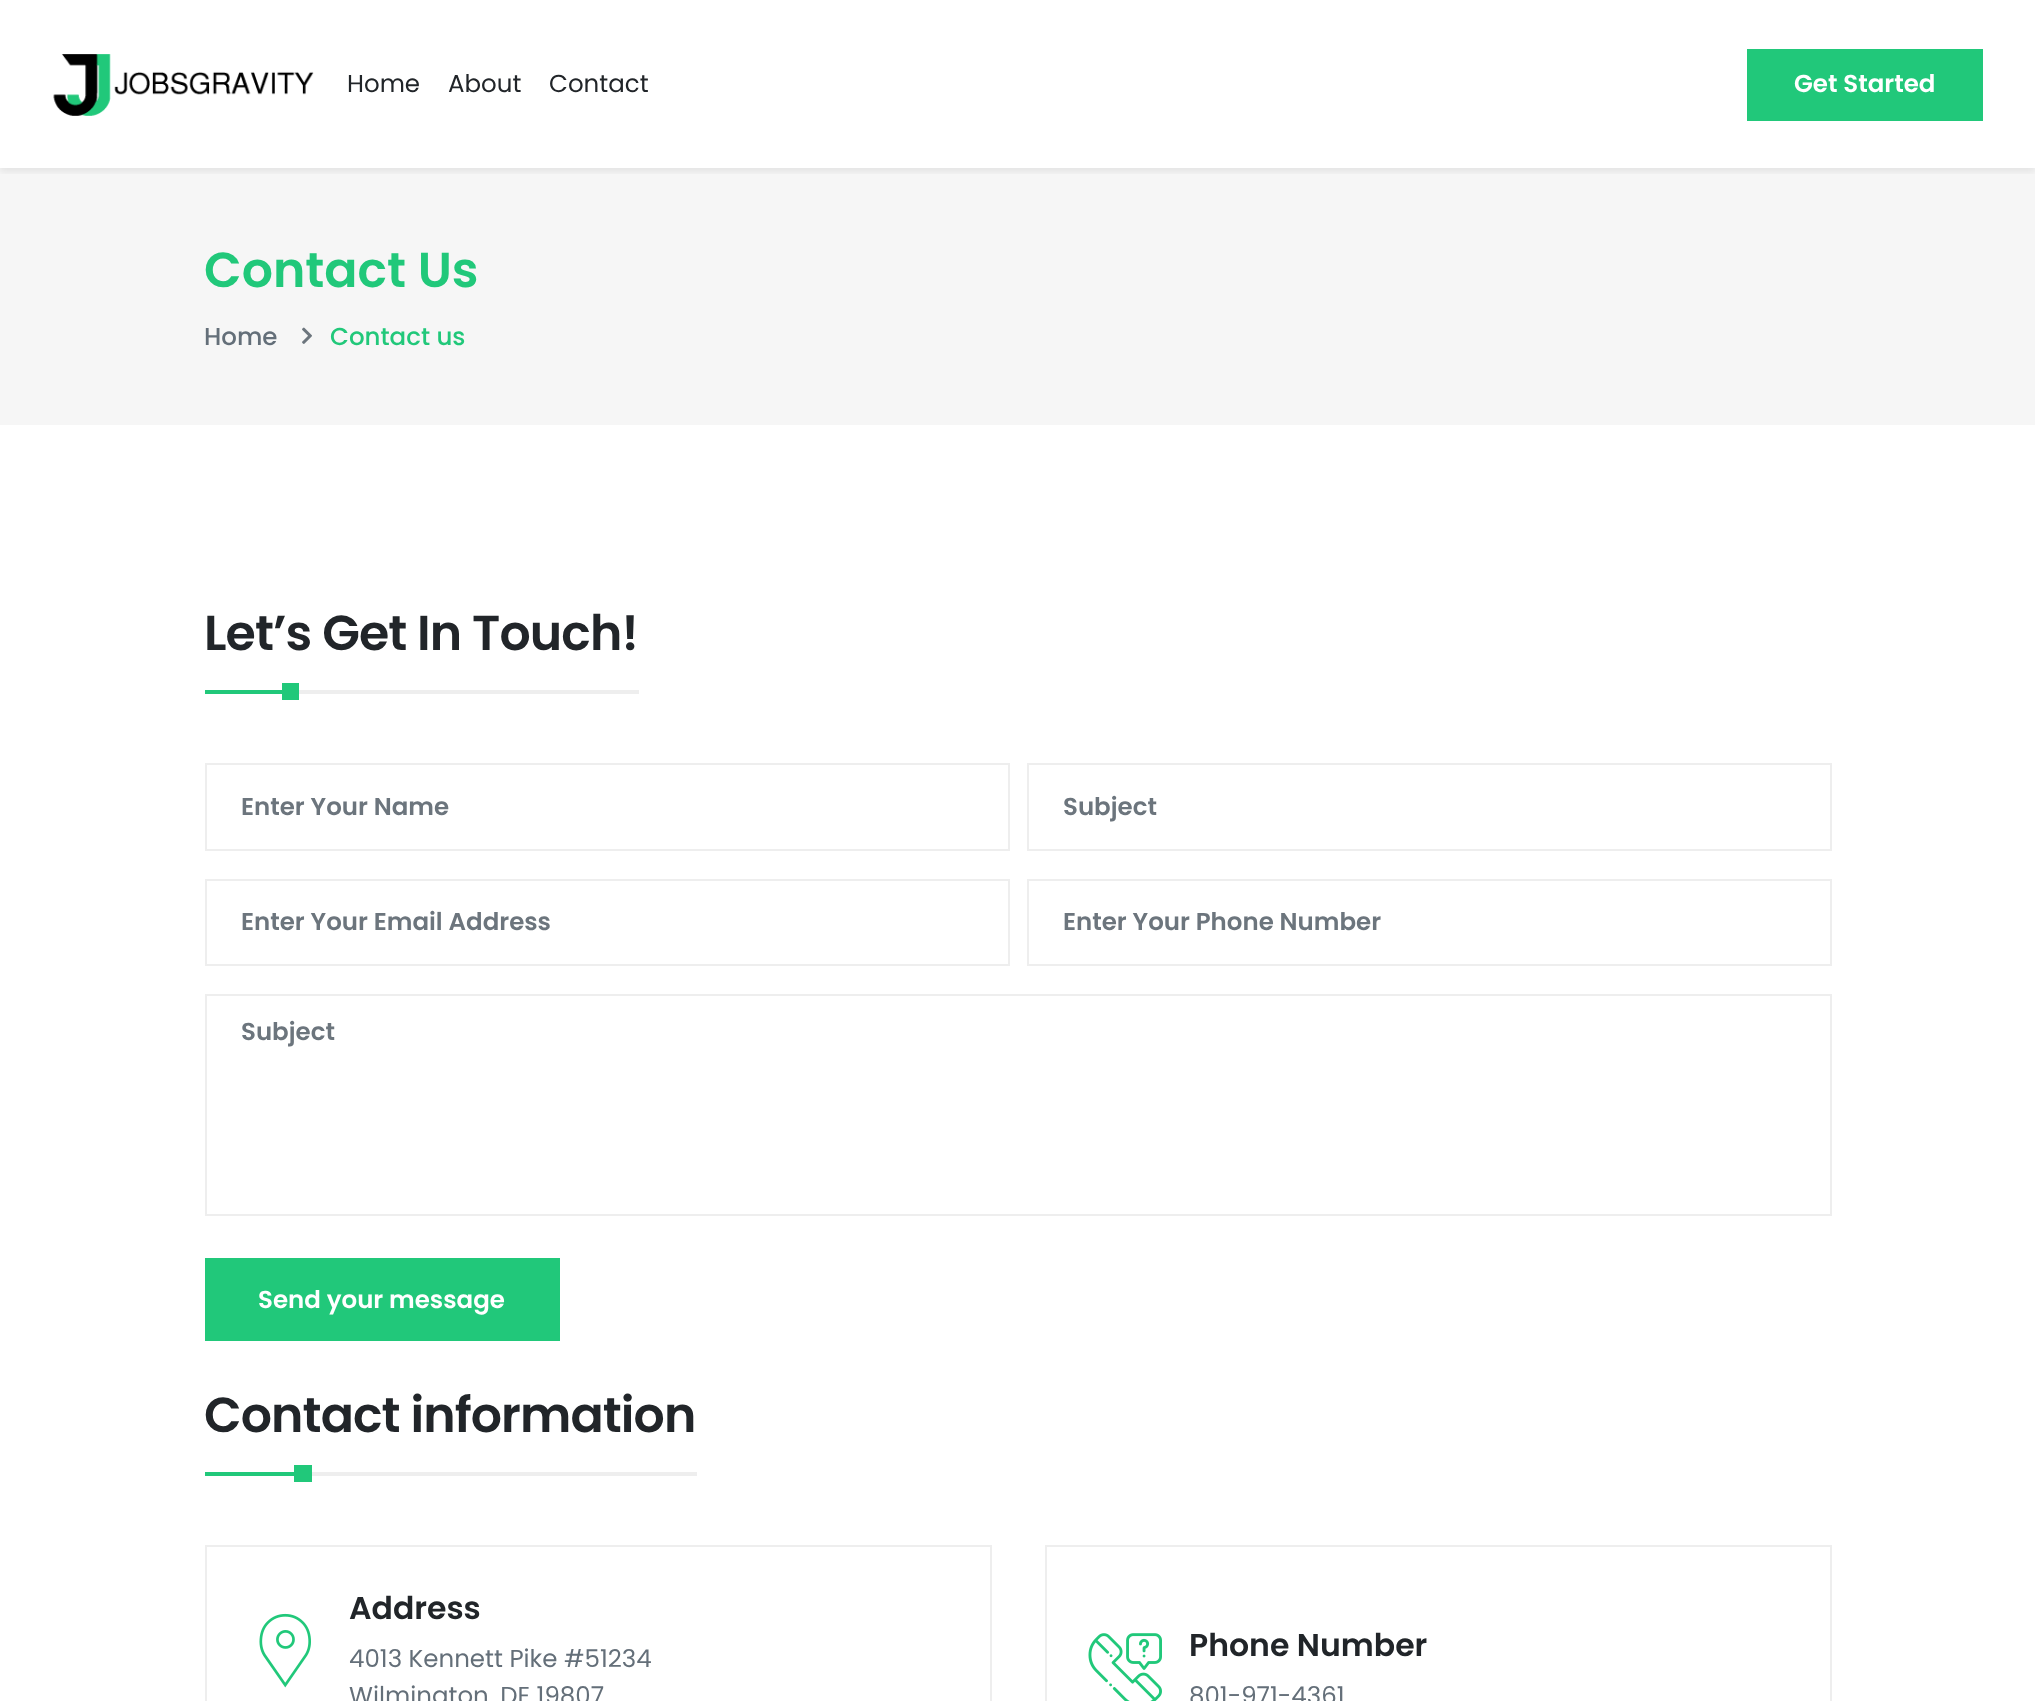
<svg xmlns="http://www.w3.org/2000/svg" width="2035" height="1701">
<style>
.a{font:24.5px Poppins;fill:#212529}
.b{font:600 24.5px Poppins;fill:#fff}
.c{font:600 49px Poppins;fill:#21c87a}
.d{font:500 24.5px Poppins;fill:#646f79}
.e{font:500 24.5px Poppins;fill:#21c87a}
.f{font:600 49px Poppins;letter-spacing:-0.9px;fill:#212529}
.g{font:600 24.5px Poppins;fill:#6c757d}
.h{font:600 31.5px Poppins;fill:#212529}
.i{font:24.5px Poppins;fill:#646f79}
</style>
<defs>
<clipPath id="clip1"><path d="M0 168h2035v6H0z"/></clipPath>
</defs>
<rect width="100%" height="100%" fill="#fff"/>
<path fill="#f6f6f6" d="M0 168h2035v257H0z"/>
<g clip-path="url(#clip1)">
<path fill="#00000012" filter="blur(3.5px)" d="M0 4h2035v168H0z"/>
</g>
<image href="1.png" x="53" y="54" width="261" height="62"/>
<path fill="#21c87a" d="M1747 49h236v72H1747z"/>
<image href="2.png" x="302" y="327" width="10" height="17"/>
<path fill="#21c87a" d="M205 690h77v4H205z"/>
<path fill="#21c87a" d="M282 683h17v17H282z"/>
<path fill="#eee" d="M299 690h340v4H299z"/>
<path fill="none" stroke="#eee" stroke-width="2" d="M206 764h803v86H206z"/>
<path fill="none" stroke="#eee" stroke-width="2" d="M1028 764h803v86H1028z"/>
<path fill="none" stroke="#eee" stroke-width="2" d="M206 880h803v85H206z"/>
<path fill="none" stroke="#eee" stroke-width="2" d="M1028 880h803v85H1028z"/>
<path fill="none" stroke="#eee" stroke-width="2" d="M206 995h1625v220H206z"/>
<path fill="#21c87a" d="M205 1258h355v83H205z"/>
<path fill="#21c87a" d="M205 1472h89v4H205z"/>
<path fill="#21c87a" d="M294 1465h18v17H294z"/>
<path fill="#eee" d="M312 1472h385v4H312z"/>
<path fill="none" stroke="#eee" stroke-width="2" d="M206 1546h785v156H206z"/>
<image href="3.png" x="259" y="1613" width="52" height="75"/>
<path fill="none" stroke="#eee" stroke-width="2" d="M1046 1546h785v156H1046z"/>
<image href="4.png" x="1088" y="1633" width="74" height="68"/>
<text class="a" x="347" y="92">Home</text>
<text class="a" x="448" y="92">About</text>
<text class="a" x="549" y="92">Contact</text>
<text class="b" x="1794" y="92">Get Started</text>
<text class="c" x="204" y="287">Contact Us</text>
<text class="d" x="204" y="345">Home</text>
<text class="e" x="330" y="345">Contact us</text>
<text class="f" x="204" y="650">Let’s Get In Touch!</text>
<text class="g" x="241" y="815">Enter Your Name</text>
<text class="g" x="1063" y="815">Subject</text>
<text class="g" x="241" y="930">Enter Your Email Address</text>
<text class="g" x="1063" y="930">Enter Your Phone Number</text>
<text class="g" x="241" y="1040">Subject</text>
<text class="b" x="258" y="1308">Send your message</text>
<text class="f" x="204" y="1432">Contact information</text>
<text class="h" x="349" y="1619">Address</text>
<text class="i" x="349" y="1667">4013 Kennett Pike #51234</text>
<text class="i" x="349" y="1704">Wilmington, DE 19807</text>
<text class="h" x="1189" y="1656">Phone Number</text>
<text class="i" x="1189" y="1704">801-971-4361</text>
</svg>
